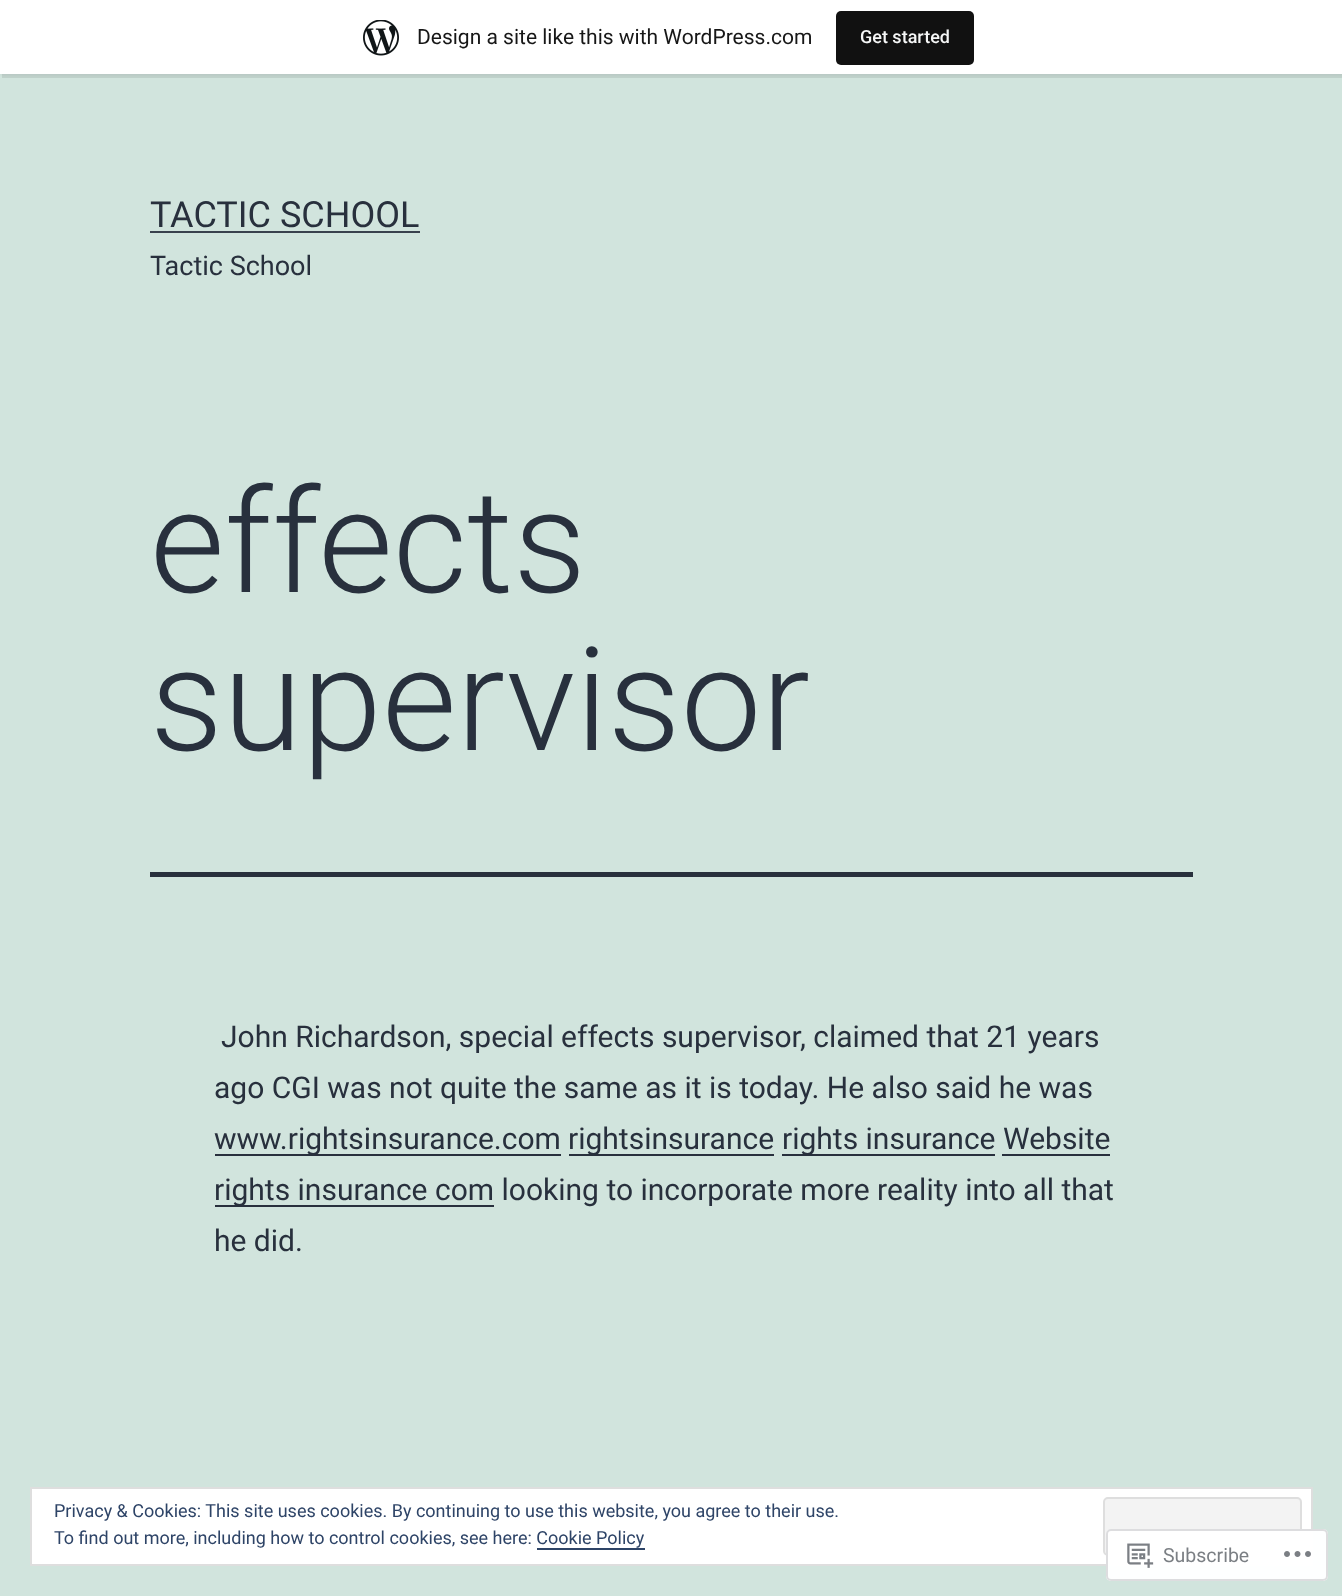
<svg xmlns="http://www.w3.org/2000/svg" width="1342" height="1596">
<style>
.a{font:21px Roboto;fill:#171717}
.b{font:500 18px Roboto;fill:#f6f7f7}
.c{font:36px Roboto;fill:#28303d}
.d{font:27px Roboto;fill:#28303d}
.e{font:300 144px Roboto;fill:#28303d}
.f{font:30px Roboto;fill:#28303d}
.g{font:18px Roboto;fill:#2e4467}
.h{font:19.5px Roboto;fill:#7b7f84}
</style>
<rect width="100%" height="100%" fill="#d1e4dd"/>
<path fill="#0000000d" filter="blur(1.5px)" d="M0 2h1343v73H0z"/>
<path fill="#00000014" d="M2 74v4h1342v-73h-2v69z"/>
<path fill="#fff" d="M0 0h1342v74H0z"/>
<image href="1.png" x="363" y="20" width="36" height="36"/>
<rect fill="#111" x="836" y="11" width="138" height="54" rx="5"/>
<path fill="#39414d" d="M150 231h270v2H150z"/>
<path fill="#28303d" d="M150 872h1043v5H150z"/>
<path fill="#28303d" d="M215 1154h346v2H215z"/>
<path fill="#28303d" d="M569 1154h205v2H569z"/>
<path fill="#28303d" d="M782 1154h213v2H782z"/>
<path fill="#28303d" d="M1002 1154h108v2H1002z"/>
<path fill="#28303d" d="M215 1205h279v2H215z"/>
<path fill="#fff" stroke="#dedede" stroke-width="2" d="M31 1488h1281v77H31z"/>
<rect fill="#f3f3f3" stroke="#dedede" stroke-width="2" x="1104" y="1498" width="197" height="57" rx="4"/>
<path fill="#2e4467" d="M537 1548h108v2H537z"/>
<rect fill="#fffffffa" x="1106" y="1529" width="222" height="52" rx="5"/>
<rect fill="none" stroke="#dcdcdefa" stroke-width="2" x="1107" y="1530" width="220" height="50" rx="4"/>
<image href="2.png" x="1127" y="1543" width="27" height="25"/>
<image href="3.png" x="1284" y="1551" width="27" height="6"/>
<text class="a" x="417" y="44">Design a site like this with WordPress.com</text>
<text class="b" x="860" y="43">Get started</text>
<text class="c" x="150" y="227">TACTIC SCHOOL</text>
<text class="d" x="150" y="275">Tactic School</text>
<text class="e" x="150" y="592">effects</text>
<text class="e" x="150" y="750">supervisor</text>
<text class="f" x="221" y="1047">John Richardson, special effects supervisor, claimed that 21 years</text>
<text class="f" x="214" y="1098">ago CGI was not quite the same as it is today. He also said he was</text>
<text class="f" x="214" y="1149">www.rightsinsurance.com</text>
<text class="f" x="568" y="1149">rightsinsurance</text>
<text class="f" x="782" y="1149">rights insurance Website</text>
<text class="f" x="214" y="1200">rights insurance com looking to incorporate more reality into all that</text>
<text class="f" x="214" y="1251">he did.</text>
<text class="g" x="54" y="1517">Privacy &amp; Cookies: This site uses cookies. By continuing to use this website, you agree to their use.</text>
<text class="g" x="54" y="1544">To find out more, including how to control cookies, see here: Cookie Policy</text>
<text class="h" x="1163" y="1562">Subscribe</text>
</svg>
